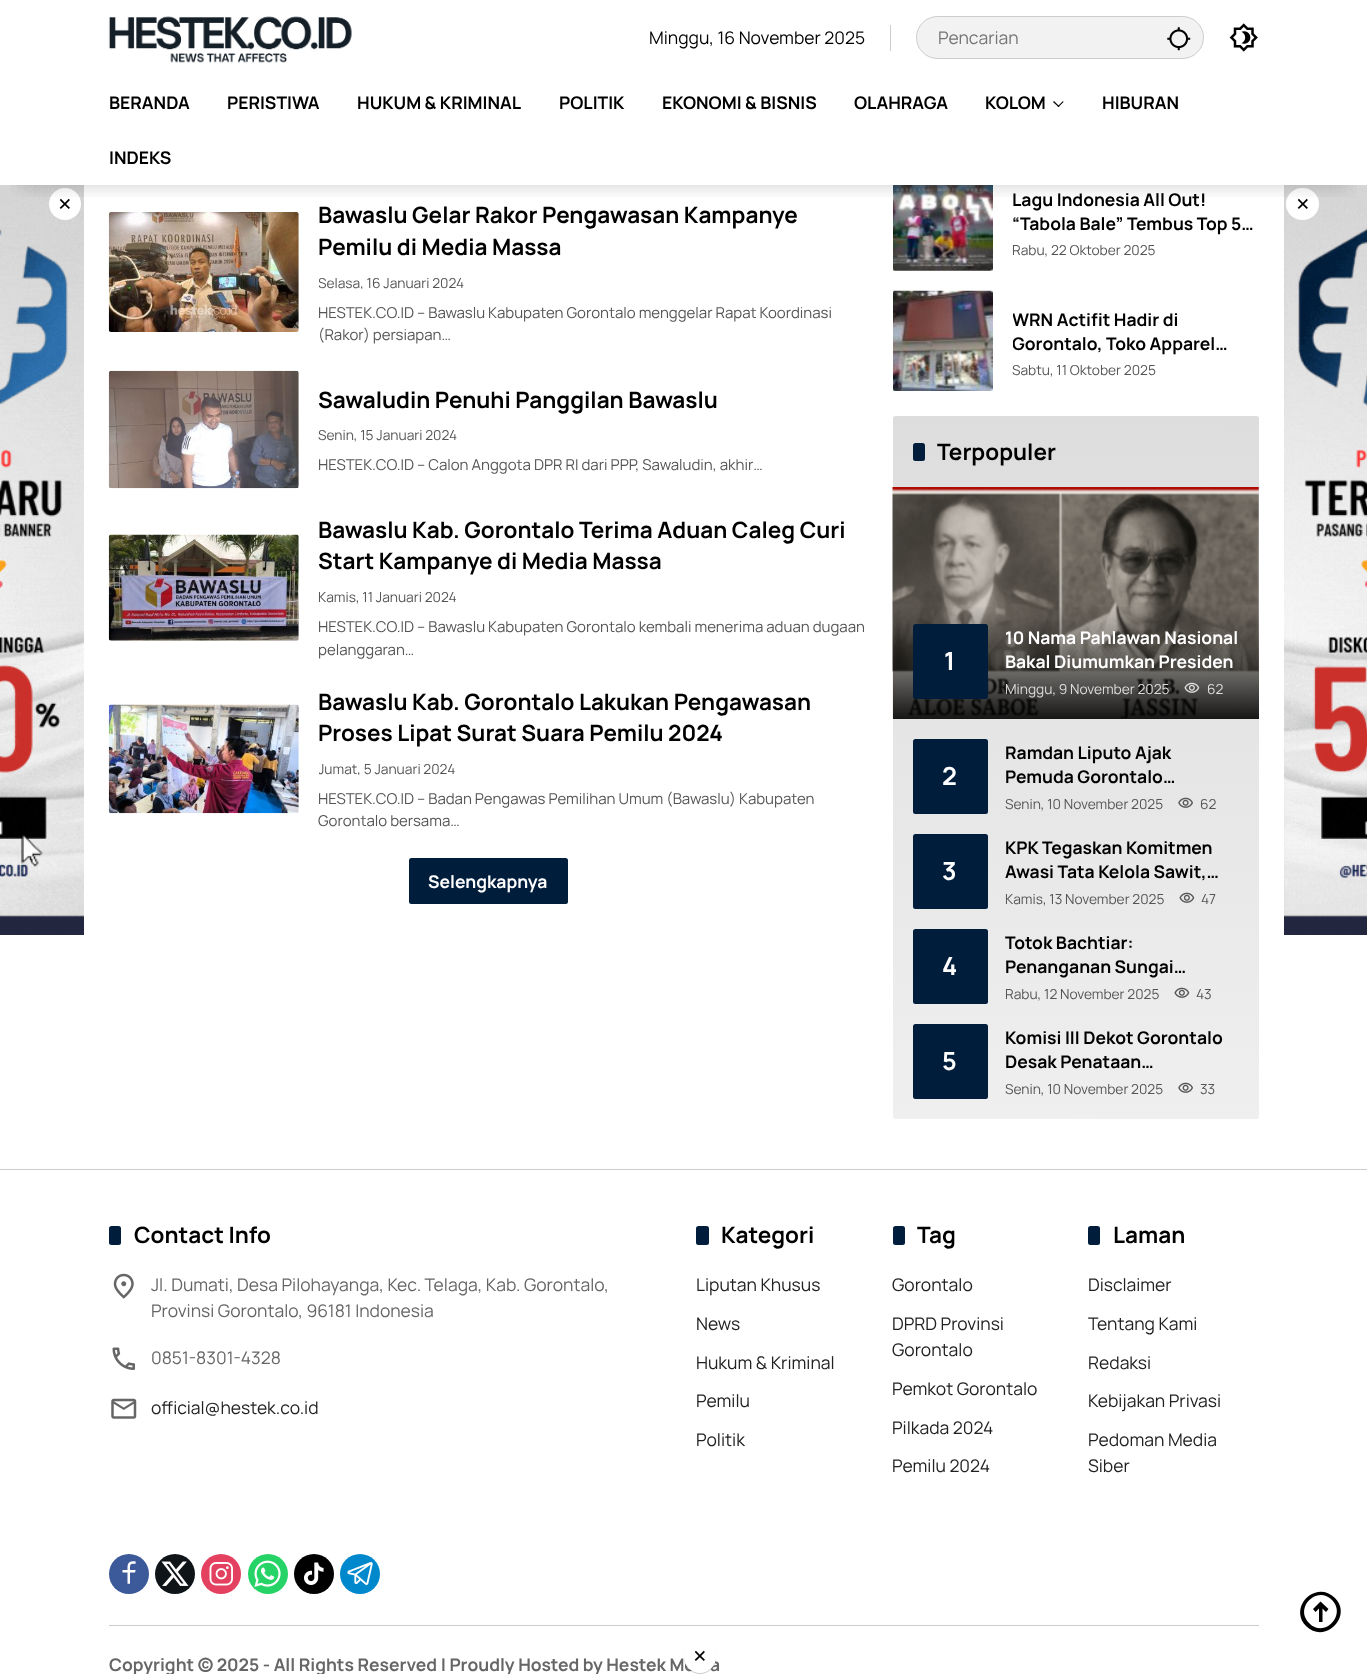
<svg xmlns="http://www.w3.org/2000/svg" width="1367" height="1674">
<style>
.a{font:17.5px Manrope;fill:#000}
.b{font:17.5px Manrope;fill:#757575}
.c{font:bold 17.5px Manrope;fill:#000}
.d{font:28px Manrope;fill:#000}
.e{font:bold 22.5px Manrope;fill:#000}
.f{font:13.75px Manrope;fill:#555}
.g{font:15px Manrope;fill:#555}
.h{font:bold 17.5px Manrope;fill:#fff}
.i{font:bold 25px Manrope;fill:#fff}
.j{font:13.75px Manrope;fill:#ddd}
.k{font:17.5px Manrope;fill:#666}
.l{font:17.5px Manrope;fill:#212121}
.m{font:bold 17.5px Manrope;fill:#666}
</style>
<defs>
<clipPath id="clip1"><path d="M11 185h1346v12H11z"/></clipPath>
<linearGradient id="g1" gradientUnits="userSpaceOnUse" x1="1069" y1="1122" x2="1082" y2="413"><stop offset="0" stop-color="#efefef"/><stop offset="1" stop-color="#ddd"/></linearGradient>
<linearGradient id="g2" gradientUnits="userSpaceOnUse" x1="1076" y1="719" x2="1076" y2="604"><stop offset="0" stop-color="#000" stop-opacity="0.9"/><stop offset="1" stop-color="#000" stop-opacity="0"/><stop offset="1" stop-color="#fff" stop-opacity="0"/></linearGradient>
<clipPath id="clip2"><path d="M319 275h549v14H319z"/></clipPath>
<clipPath id="clip3"><path d="M319 761h549v14H319z"/></clipPath>
<clipPath id="clip4"><path d="M1013 308h246v48H1013z"/></clipPath>
<clipPath id="clip5"><path d="M1005 930h234v49H1005z"/></clipPath>
</defs>
<rect width="100%" height="100%" fill="#fff"/>
<image href="1.png" x="108" y="16" width="244" height="47"/>
<path fill="#ccc" d="M890 25h1v26H890z"/>
<rect fill="#f2f2f2" stroke="#ccc" x="916.5" y="16.5" width="287" height="42" rx="21"/>
<image href="2.png" x="1167" y="27" width="24" height="24"/>
<image href="3.png" x="1229" y="23" width="29" height="29"/>
<image href="4.png" x="0" y="185" width="84" height="750"/>
<circle fill="#fff" cx="65" cy="204" r="16"/>
<image href="5.png" x="108" y="212" width="191" height="120"/>
<image href="9.png" x="893" y="185" width="100" height="86"/>
<image href="17.png" x="1284" y="185" width="83" height="750"/>
<rect fill="#fff" x="1286" y="188" width="33" height="32" rx="16"/>
<g clip-path="url(#clip1)">
<path fill="#00000033" filter="blur(9.5px)" d="M19 113h1330v72H19z"/>
</g>
<path fill="#000" d="M1063 101l.5 1l-5 5l-1-.5z"/>
<path fill="#000" d="M1054 101l5.5 5.5l-1 .5l-5.5-5z"/>
<image href="6.png" x="108" y="370" width="191" height="119"/>
<image href="7.png" x="108" y="534" width="191" height="107"/>
<image href="8.png" x="108" y="704" width="191" height="110"/>
<rect fill="#001e3b" x="409" y="858" width="159" height="46" rx="2.5"/>
<image href="10.png" x="893" y="290" width="100" height="101"/>
<rect fill="url(#g1)" x="893" y="416" width="366" height="703" rx="2.5"/>
<rect fill="#001e3b" x="913" y="443" width="12" height="18" rx="2.5"/>
<image href="11.png" x="892" y="487" width="367" height="232"/>
<path fill="url(#g2)" d="M893 607h366v112H893z"/>
<rect fill="#001e3b" x="913" y="624" width="75" height="75" rx="2.5"/>
<image href="12.png" x="1184" y="682" width="16" height="11"/>
<rect fill="#001e3b" x="913" y="739" width="75" height="75" rx="2.5"/>
<image href="13.png" x="1178" y="797" width="15" height="11"/>
<rect fill="#001e3b" x="913" y="834" width="75" height="75" rx="2.5"/>
<image href="14.png" x="1179" y="892" width="16" height="11"/>
<rect fill="#001e3b" x="913" y="929" width="75" height="75" rx="2.5"/>
<image href="15.png" x="1174" y="987" width="16" height="11"/>
<rect fill="#001e3b" x="913" y="1024" width="75" height="75" rx="2.5"/>
<image href="16.png" x="1178" y="1082" width="15" height="11"/>
<path fill="#ccc" d="M0 1169h1367v1H0z"/>
<rect fill="#001e3b" x="109" y="1226" width="12" height="19" rx="2.5"/>
<image href="18.png" x="113" y="1273" width="21" height="26"/>
<image href="19.png" x="112" y="1347" width="23" height="23"/>
<image href="20.png" x="111" y="1398" width="26" height="21"/>
<rect fill="#001e3b" x="696" y="1226" width="13" height="19" rx="2.5"/>
<rect fill="#001e3b" x="893" y="1226" width="12" height="19" rx="2.5"/>
<rect fill="#001e3b" x="1088" y="1226" width="12" height="19" rx="2.5"/>
<path fill="#ccc" d="M109 1625h1150v1H109z"/>
<circle fill="#3c5a99" cx="129" cy="1574" r="20"/>
<image href="21.png" x="122" y="1561" width="14" height="23"/>
<circle fill="#0f1419" cx="175" cy="1574" r="20"/>
<image href="22.png" x="161" y="1561" width="28" height="25"/>
<circle fill="#e4405f" cx="221" cy="1574" r="20"/>
<image href="23.png" x="209" y="1562" width="24" height="24"/>
<circle fill="#25d366" cx="268" cy="1574" r="20"/>
<image href="24.png" x="254" y="1560" width="27" height="27"/>
<circle fill="#010101" cx="314" cy="1574" r="20"/>
<image href="25.png" x="304" y="1562" width="20" height="23"/>
<circle fill="#08c" cx="360" cy="1574" r="20"/>
<image href="26.png" x="347" y="1562" width="26" height="23"/>
<path fill="#000" d="M1326 1612l2.5-3l-8-7.5l-7.5 7.5l2.5 3l3.5-3.5v13.5h3.5v-13.5z"/>
<path fill="#000" fill-rule="evenodd" d="M1335 1598c-19-19-47 9-29 28c19 19 47-10 29-28zm-3 2c-15-15-38 8-23 23c15 16 38-8 23-23z"/>
<rect fill="#00000033" filter="blur(0.5px)" x="684" y="1641" width="32" height="33" rx="16"/>
<text class="a" x="649" y="44">Minggu, 16 November 2025</text>
<text class="b" x="938" y="44">Pencarian</text>
<text class="c" x="109" y="109">BERANDA</text>
<text class="c" x="227" y="109">PERISTIWA</text>
<text class="c" x="357" y="109">HUKUM &amp; KRIMINAL</text>
<text class="c" x="559" y="109">POLITIK</text>
<text class="c" x="662" y="109">EKONOMI &amp; BISNIS</text>
<text class="c" x="854" y="109">OLAHRAGA</text>
<text class="c" x="985" y="109">KOLOM</text>
<text class="c" x="1102" y="109">HIBURAN</text>
<text class="c" x="109" y="164">INDEKS</text>
<text class="d" x="58" y="214">×</text>
<text class="e" x="318" y="223">Bawaslu Gelar Rakor Pengawasan Kampanye</text>
<text class="e" x="318" y="255">Pemilu di Media Massa</text>
<g clip-path="url(#clip2)">
<text class="f" x="318" y="288">Selasa, 16 Januari 2024</text>
</g>
<text class="g" x="318" y="318">HESTEK.CO.ID – Bawaslu Kabupaten Gorontalo menggelar Rapat Koordinasi</text>
<text class="g" x="318" y="340">(Rakor) persiapan…</text>
<text class="e" x="318" y="408">Sawaludin Penuhi Panggilan Bawaslu</text>
<text class="f" x="318" y="440">Senin, 15 Januari 2024</text>
<text class="g" x="318" y="470">HESTEK.CO.ID – Calon Anggota DPR RI dari PPP, Sawaludin, akhir…</text>
<text class="e" x="318" y="538">Bawaslu Kab. Gorontalo Terima Aduan Caleg Curi</text>
<text class="e" x="318" y="569">Start Kampanye di Media Massa</text>
<text class="f" x="318" y="602">Kamis, 11 Januari 2024</text>
<text class="g" x="318" y="632">HESTEK.CO.ID – Bawaslu Kabupaten Gorontalo kembali menerima aduan dugaan</text>
<text class="g" x="318" y="655">pelanggaran…</text>
<text class="e" x="318" y="710">Bawaslu Kab. Gorontalo Lakukan Pengawasan</text>
<text class="e" x="318" y="741">Proses Lipat Surat Suara Pemilu 2024</text>
<g clip-path="url(#clip3)">
<text class="f" x="318" y="774">Jumat, 5 Januari 2024</text>
</g>
<text class="g" x="318" y="804">HESTEK.CO.ID – Badan Pengawas Pemilihan Umum (Bawaslu) Kabupaten</text>
<text class="g" x="318" y="826">Gorontalo bersama…</text>
<text class="h" x="428" y="888">Selengkapnya</text>
<text class="c" x="1012" y="206">Lagu Indonesia All Out!</text>
<text class="c" x="1012" y="230">“Tabola Bale” Tembus Top 5…</text>
<text class="f" x="1012" y="255">Rabu, 22 Oktober 2025</text>
<g clip-path="url(#clip4)">
<text class="c" x="1012" y="326">WRN Actifit Hadir di</text>
<text class="c" x="1012" y="350">Gorontalo, Toko Apparel…</text>
</g>
<text class="f" x="1012" y="375">Sabtu, 11 Oktober 2025</text>
<text class="e" x="937" y="460">Terpopuler</text>
<text class="i" x="944" y="670">1</text>
<text class="h" x="1005" y="644">10 Nama Pahlawan Nasional</text>
<text class="h" x="1005" y="668">Bakal Diumumkan Presiden</text>
<text class="j" x="1005" y="694">Minggu, 9 November 2025</text>
<text class="j" x="1207" y="694">62</text>
<text class="i" x="942" y="785">2</text>
<text class="c" x="1005" y="759">Ramdan Liputo Ajak</text>
<text class="c" x="1005" y="783">Pemuda Gorontalo…</text>
<text class="f" x="1005" y="809">Senin, 10 November 2025</text>
<text class="f" x="1200" y="809">62</text>
<text class="i" x="942" y="880">3</text>
<text class="c" x="1005" y="854">KPK Tegaskan Komitmen</text>
<text class="c" x="1005" y="878">Awasi Tata Kelola Sawit,…</text>
<text class="f" x="1005" y="904">Kamis, 13 November 2025</text>
<text class="f" x="1201" y="904">47</text>
<text class="i" x="942" y="975">4</text>
<g clip-path="url(#clip5)">
<text class="c" x="1005" y="949">Totok Bachtiar:</text>
</g>
<text class="c" x="1005" y="973">Penanganan Sungai…</text>
<text class="f" x="1005" y="999">Rabu, 12 November 2025</text>
<text class="f" x="1196" y="999">43</text>
<text class="i" x="942" y="1070">5</text>
<text class="c" x="1005" y="1044">Komisi III Dekot Gorontalo</text>
<text class="c" x="1005" y="1068">Desak Penataan…</text>
<text class="f" x="1005" y="1094">Senin, 10 November 2025</text>
<text class="f" x="1200" y="1094">33</text>
<text class="d" x="1296" y="214">×</text>
<text class="e" x="134" y="1243">Contact Info</text>
<text class="k" x="151" y="1291">Jl. Dumati, Desa Pilohayanga, Kec. Telaga, Kab. Gorontalo,</text>
<text class="k" x="151" y="1317">Provinsi Gorontalo, 96181 Indonesia</text>
<text class="k" x="151" y="1364">0851-8301-4328</text>
<text class="l" x="151" y="1414">official@hestek.co.id</text>
<text class="e" x="721" y="1243">Kategori</text>
<text class="l" x="696" y="1291">Liputan Khusus</text>
<text class="l" x="696" y="1330">News</text>
<text class="l" x="696" y="1369">Hukum &amp; Kriminal</text>
<text class="l" x="696" y="1407">Pemilu</text>
<text class="l" x="696" y="1446">Politik</text>
<text class="e" x="917" y="1243">Tag</text>
<text class="l" x="892" y="1291">Gorontalo</text>
<text class="l" x="892" y="1330">DPRD Provinsi</text>
<text class="l" x="892" y="1356">Gorontalo</text>
<text class="l" x="892" y="1395">Pemkot Gorontalo</text>
<text class="l" x="892" y="1434">Pilkada 2024</text>
<text class="l" x="892" y="1472">Pemilu 2024</text>
<text class="e" x="1113" y="1243">Laman</text>
<text class="l" x="1088" y="1291">Disclaimer</text>
<text class="l" x="1088" y="1330">Tentang Kami</text>
<text class="l" x="1088" y="1369">Redaksi</text>
<text class="l" x="1088" y="1407">Kebijakan Privasi</text>
<text class="l" x="1088" y="1446">Pedoman Media</text>
<text class="l" x="1088" y="1472">Siber</text>
<text class="m" x="109" y="1671">Copyright © 2025 - All Rights Reserved | Proudly Hosted by Hestek Me</text>
<text class="m" x="710" y="1671">a</text>
<rect fill="#fff" x="684" y="1640" width="32" height="33" rx="16"/>
<text class="d" x="693" y="1666">×</text>
</svg>
